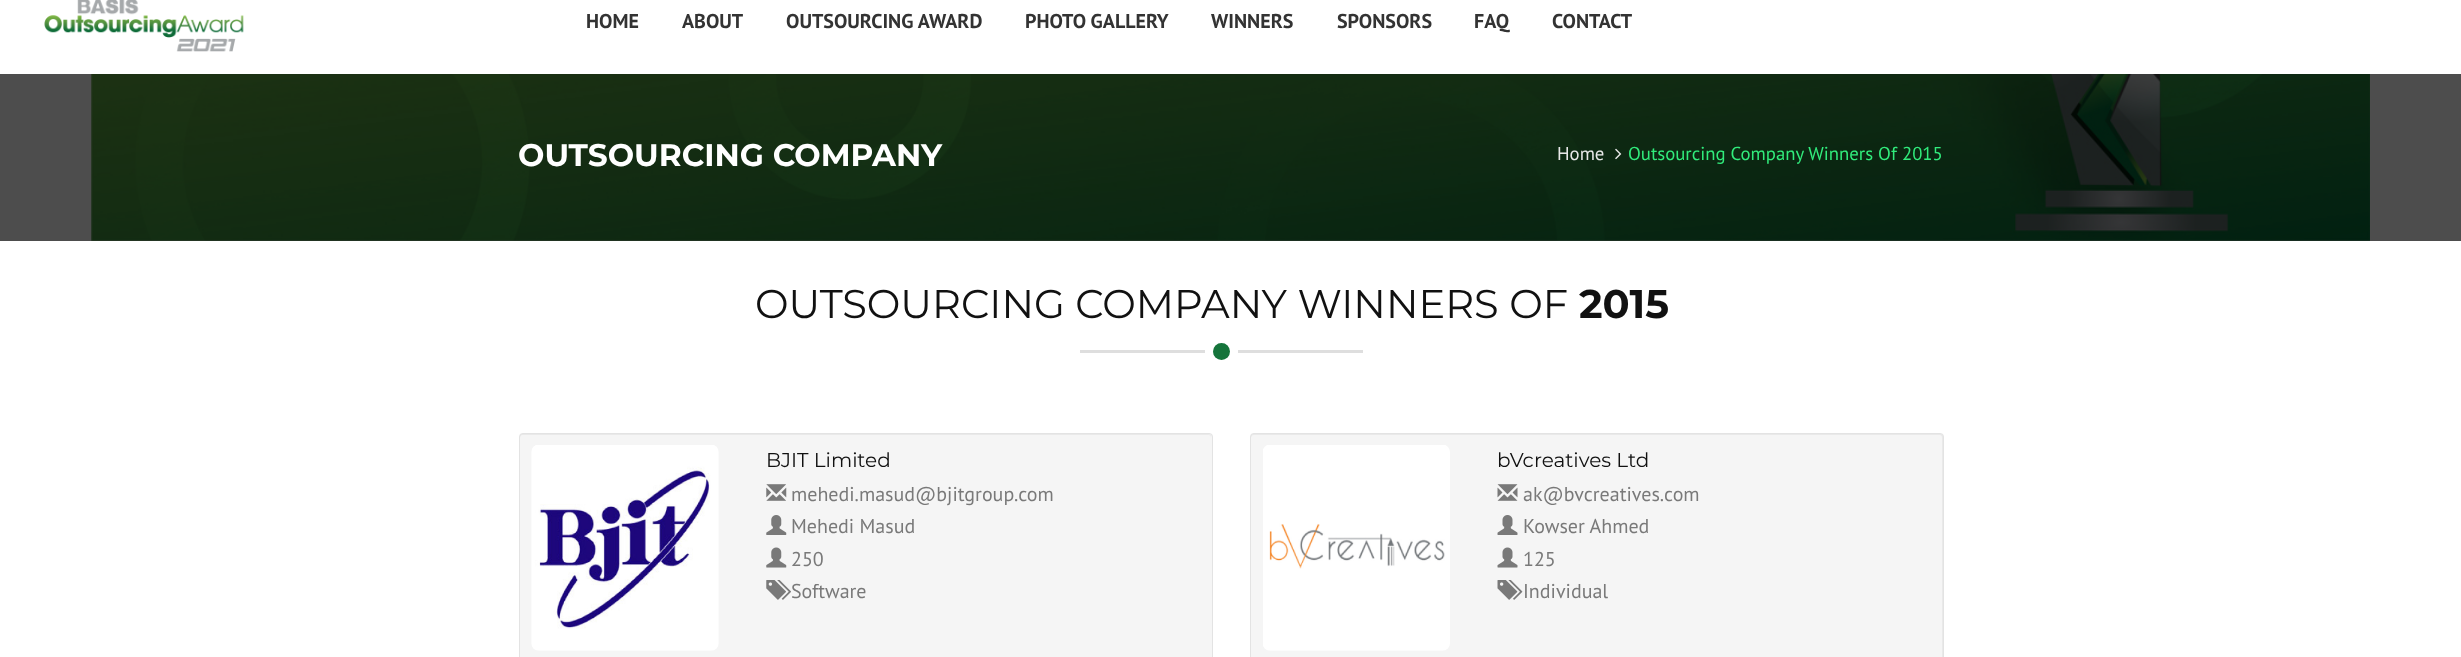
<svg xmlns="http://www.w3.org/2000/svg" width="2461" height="657">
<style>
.a{font:bold 20px PT Sans;fill:#333}
.b{font:bold 31.25px Montserrat;fill:#fff}
.c{font:18.75px PT Sans;fill:#e8e8e8}
.d{font:18.75px PT Sans;fill:#31ec7c}
.e{font:40px Montserrat;fill:#111}
.f{font:bold 40px Montserrat;fill:#111}
.g{font:20px Montserrat;fill:#111}
.h{font:20px PT Sans;fill:#797979}
</style>
<rect width="100%" height="100%" fill="#fff"/>
<path fill="#4d4d4d" d="M0 74h2461v167H0z"/>
<image href="1.png" x="44" y="0" width="200" height="52"/>
<image href="2.png" x="91" y="74" width="2279" height="167"/>
<image href="3.png" x="1615" y="148" width="7" height="12"/>
<circle fill="#15743b" cx="1221.5" cy="351.5" r="8.5"/>
<path fill="#dedede" d="M1080 350h125v3H1080z"/>
<path fill="#dedede" d="M1238 350h125v3H1238z"/>
<rect fill="#f5f5f5" x="519" y="433" width="694" height="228" rx="4"/>
<path fill="#e9e9e9" d="M522 435h687c1 0 2 1 2 3v-2c0-1-1-2-3-2h-686c-1 0-2 1-2 2v2c0-2 1-3 2-3z"/>
<rect fill="none" stroke="#e3e3e3" x="519.5" y="433.5" width="693" height="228" rx="3.5"/>
<image href="4.png" x="531" y="445" width="188" height="206"/>
<image href="5.png" x="766" y="484" width="21" height="17"/>
<image href="6.png" x="766" y="515" width="21" height="20"/>
<image href="7.png" x="766" y="547" width="21" height="21"/>
<image href="8.png" x="766" y="580" width="25" height="20"/>
<rect fill="#f5f5f5" x="1250" y="433" width="694" height="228" rx="4"/>
<path fill="#e9e9e9" d="M1254 435h686c1 0 2 1 2 3v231c1-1 1-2 1-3v-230c0-1-1-2-3-2h-686c-2 0-3 1-3 2v2c0-2 1-3 3-3z"/>
<rect fill="none" stroke="#e3e3e3" x="1250.5" y="433.5" width="693" height="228" rx="3.5"/>
<image href="9.png" x="1263" y="445" width="187" height="206"/>
<image href="10.png" x="1497" y="484" width="21" height="17"/>
<image href="11.png" x="1497" y="515" width="21" height="20"/>
<image href="12.png" x="1497" y="547" width="21" height="21"/>
<image href="13.png" x="1497" y="580" width="26" height="20"/>
<text class="a" x="586" y="28">HOME</text>
<text class="a" x="682" y="28">ABOUT</text>
<text class="a" x="786" y="28">OUTSOURCING AWARD</text>
<text class="a" x="1025" y="28">PHOTO GALLERY</text>
<text class="a" x="1211" y="28">WINNERS</text>
<text class="a" x="1337" y="28">SPONSORS</text>
<text class="a" x="1474" y="28">FAQ</text>
<text class="a" x="1552" y="28">CONTACT</text>
<text class="b" x="518" y="166">OUTSOURCING COMPANY</text>
<text class="c" x="1557" y="160">Home</text>
<text class="d" x="1628" y="160">Outsourcing Company Winners Of 2015</text>
<text class="e" x="755" y="318">OUTSOURCING COMPANY WINNERS OF</text>
<text class="f" x="1579" y="318">2015</text>
<text class="g" x="766" y="467">BJIT Limited</text>
<text class="h" x="791" y="501">mehedi.masud@bjitgroup.com</text>
<text class="h" x="791" y="533">Mehedi Masud</text>
<text class="h" x="791" y="566">250</text>
<text class="h" x="791" y="598">Software</text>
<text class="g" x="1497" y="467">bVcreatives Ltd</text>
<text class="h" x="1523" y="501">ak@bvcreatives.com</text>
<text class="h" x="1523" y="533">Kowser Ahmed</text>
<text class="h" x="1523" y="566">125</text>
<text class="h" x="1523" y="598">Individual</text>
</svg>
